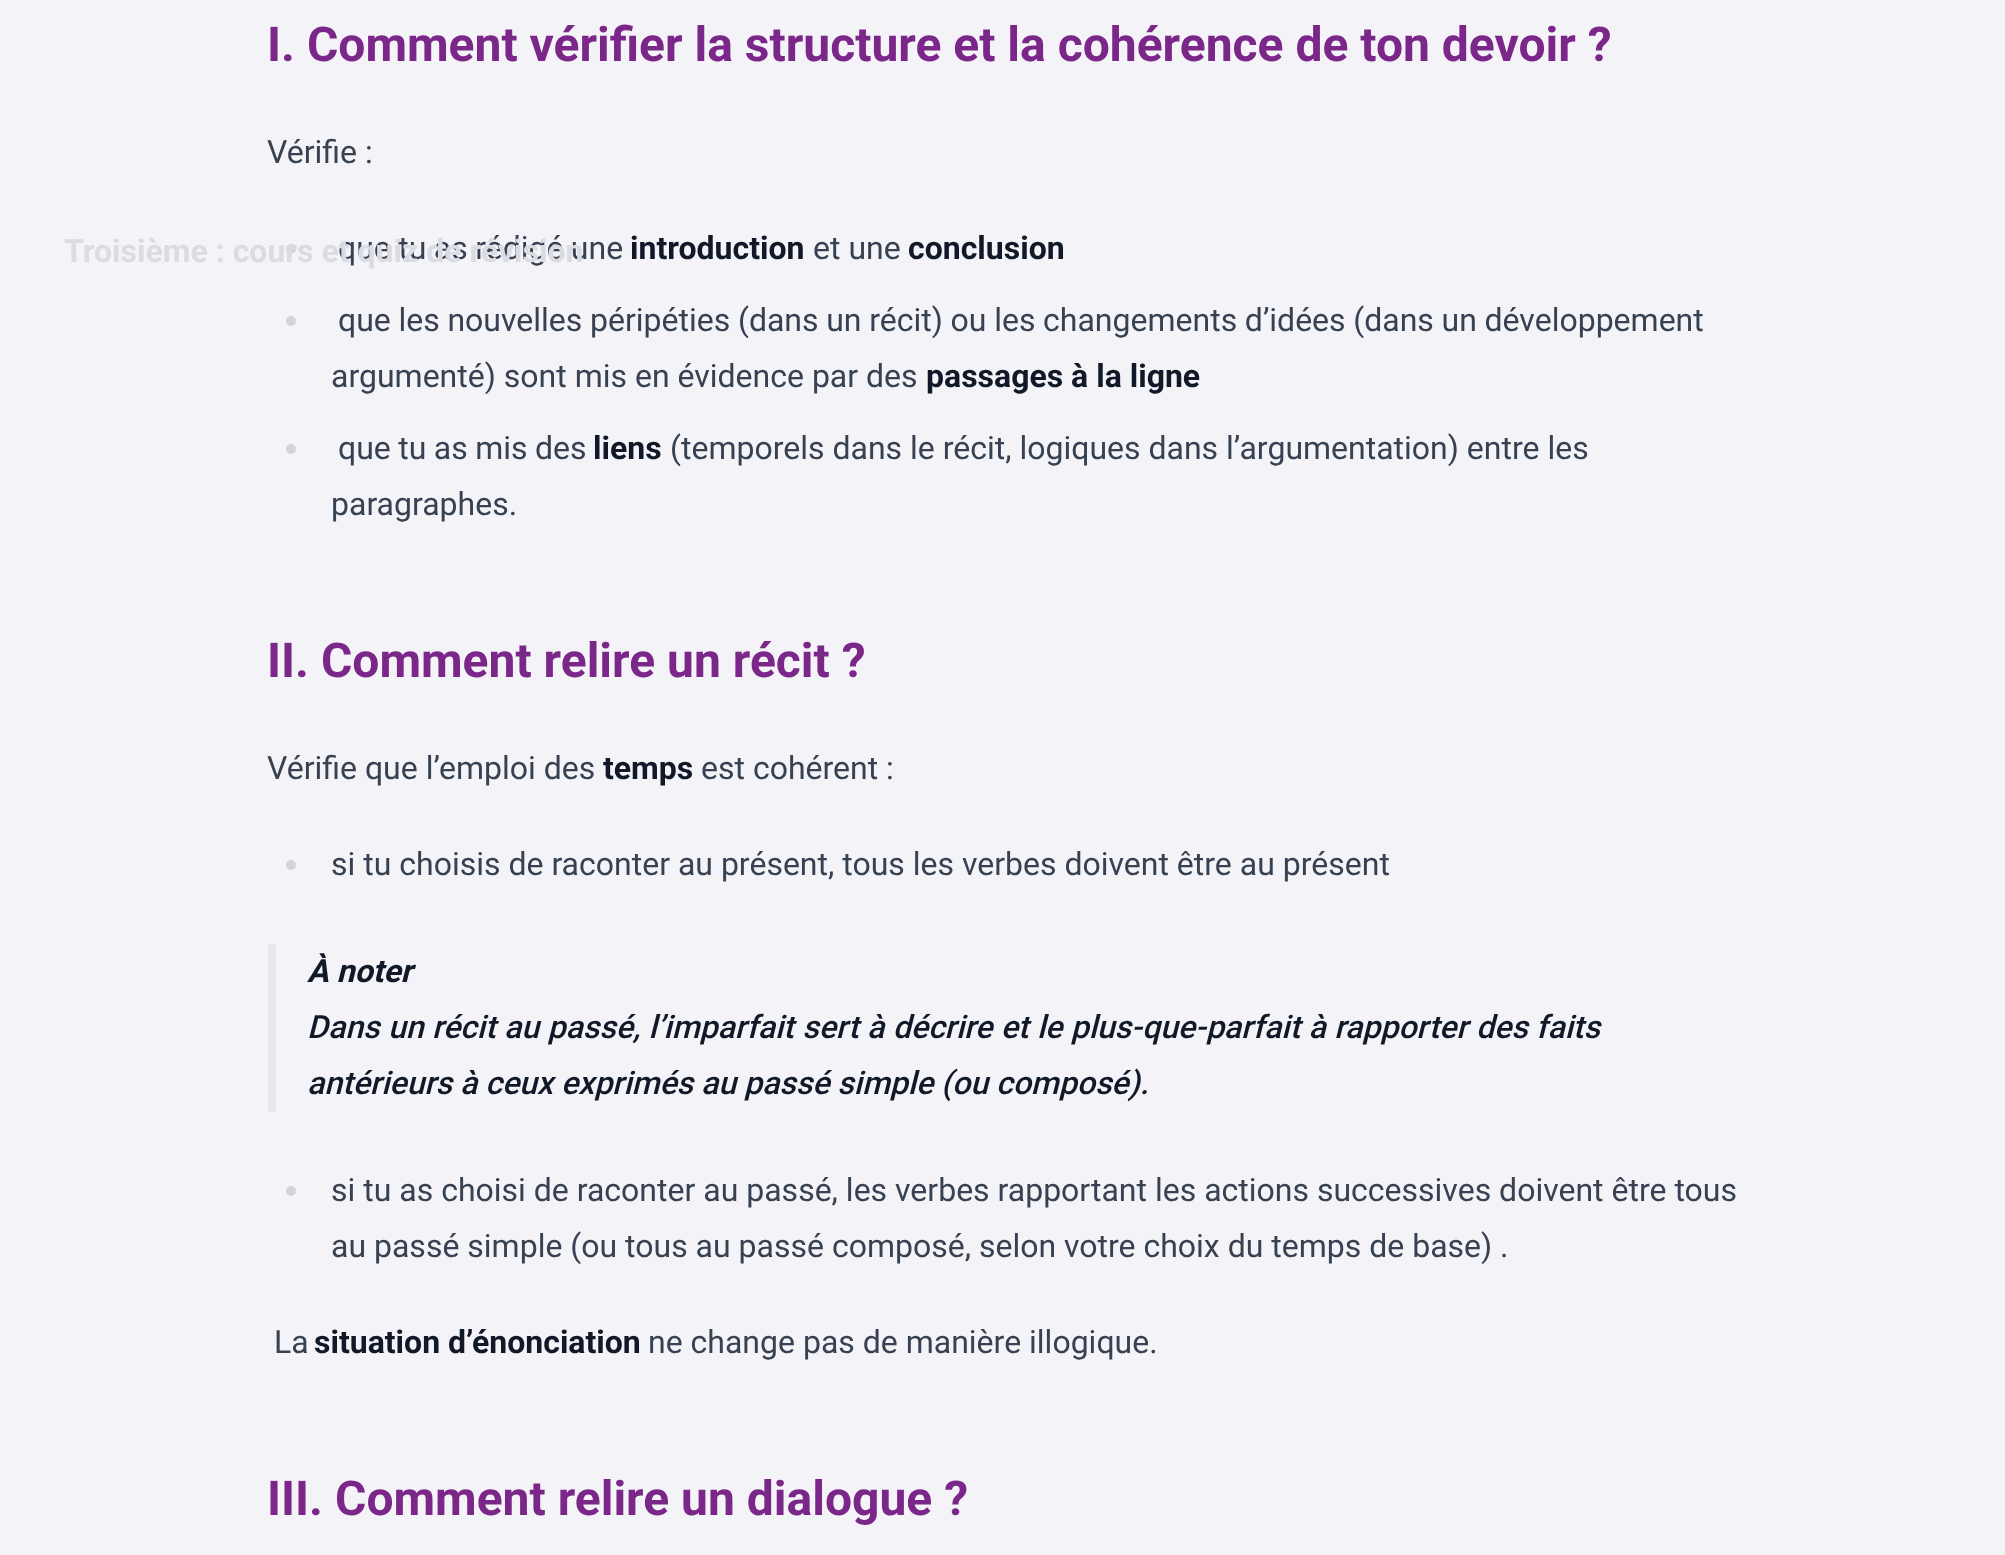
<svg xmlns="http://www.w3.org/2000/svg" width="2005" height="1555">
<style>
.a{font:bold 48px Roboto;fill:#7b2689}
.b{font:32px Roboto;fill:#374151}
.c{font:bold 32px Roboto;fill:#111827}
.d{font:italic bold 32px Roboto;fill:#111827}
.e{font:italic 500 32px Roboto;fill:#111827}
.f{font:bold 32px Roboto;fill:#dadce2}
</style>
<rect width="100%" height="100%" fill="#f3f3f8"/>
<circle fill="#d1d5db" cx="291" cy="249" r="5"/>
<circle fill="#d1d5db" cx="291" cy="321" r="5"/>
<circle fill="#d1d5db" cx="291" cy="449" r="5"/>
<circle fill="#d1d5db" cx="291" cy="865" r="5"/>
<path fill="#e5e7eb" d="M268 944h8v168H268z"/>
<circle fill="#d1d5db" cx="291" cy="1191" r="5"/>
<text class="a" x="267" y="61">I. Comment vérifier la structure et la cohérence de ton devoir ?</text>
<text class="b" x="267" y="163">Vérifie :</text>
<text class="b" x="338" y="259" word-spacing="-0.5">que tu as rédigé une</text>
<text class="c" x="630" y="259">introduction</text>
<text class="b" x="813" y="259">et une</text>
<text class="c" x="908" y="259">conclusion</text>
<text class="b" x="338" y="331" word-spacing="-0.25">que les nouvelles péripéties (dans un récit) ou les changements d’idées (dans un développement</text>
<text class="b" x="331" y="387">argumenté) sont mis en évidence par des</text>
<text class="c" x="926" y="387">passages à la ligne</text>
<text class="b" x="338" y="459" word-spacing="-0.5">que tu as mis des</text>
<text class="c" x="593" y="459">liens</text>
<text class="b" x="670" y="459">(temporels dans le récit, logiques dans l’argumentation) entre les</text>
<text class="b" x="331" y="515">paragraphes.</text>
<text class="a" x="267" y="677">II. Comment relire un récit ?</text>
<text class="b" x="267" y="779">Vérifie que l’emploi des</text>
<text class="c" x="603" y="779">temps</text>
<text class="b" x="701" y="779">est cohérent :</text>
<text class="b" x="331" y="875">si tu choisis de raconter au présent, tous les verbes doivent être au présent</text>
<text class="d" x="307" y="982">À noter</text>
<text class="e" x="307" y="1038" word-spacing="0.5">Dans un récit au passé, l’imparfait sert à décrire et le plus-que-parfait à rapporter des faits</text>
<text class="e" x="307" y="1094">antérieurs à ceux exprimés au passé simple (ou composé).</text>
<text class="b" x="331" y="1201">si tu as choisi de raconter au passé, les verbes rapportant les actions successives doivent être tous</text>
<text class="b" x="331" y="1257">au passé simple (ou tous au passé composé, selon votre choix du temps de base) .</text>
<text class="b" x="274" y="1353">La</text>
<text class="c" x="314" y="1353">situation d’énonciation</text>
<text class="b" x="648" y="1353">ne change pas de manière illogique.</text>
<text class="a" x="267" y="1515">III. Comment relire un dialogue ?</text>
<text class="f" x="64" y="262">Troisième : cours et quiz de révision</text>
</svg>
